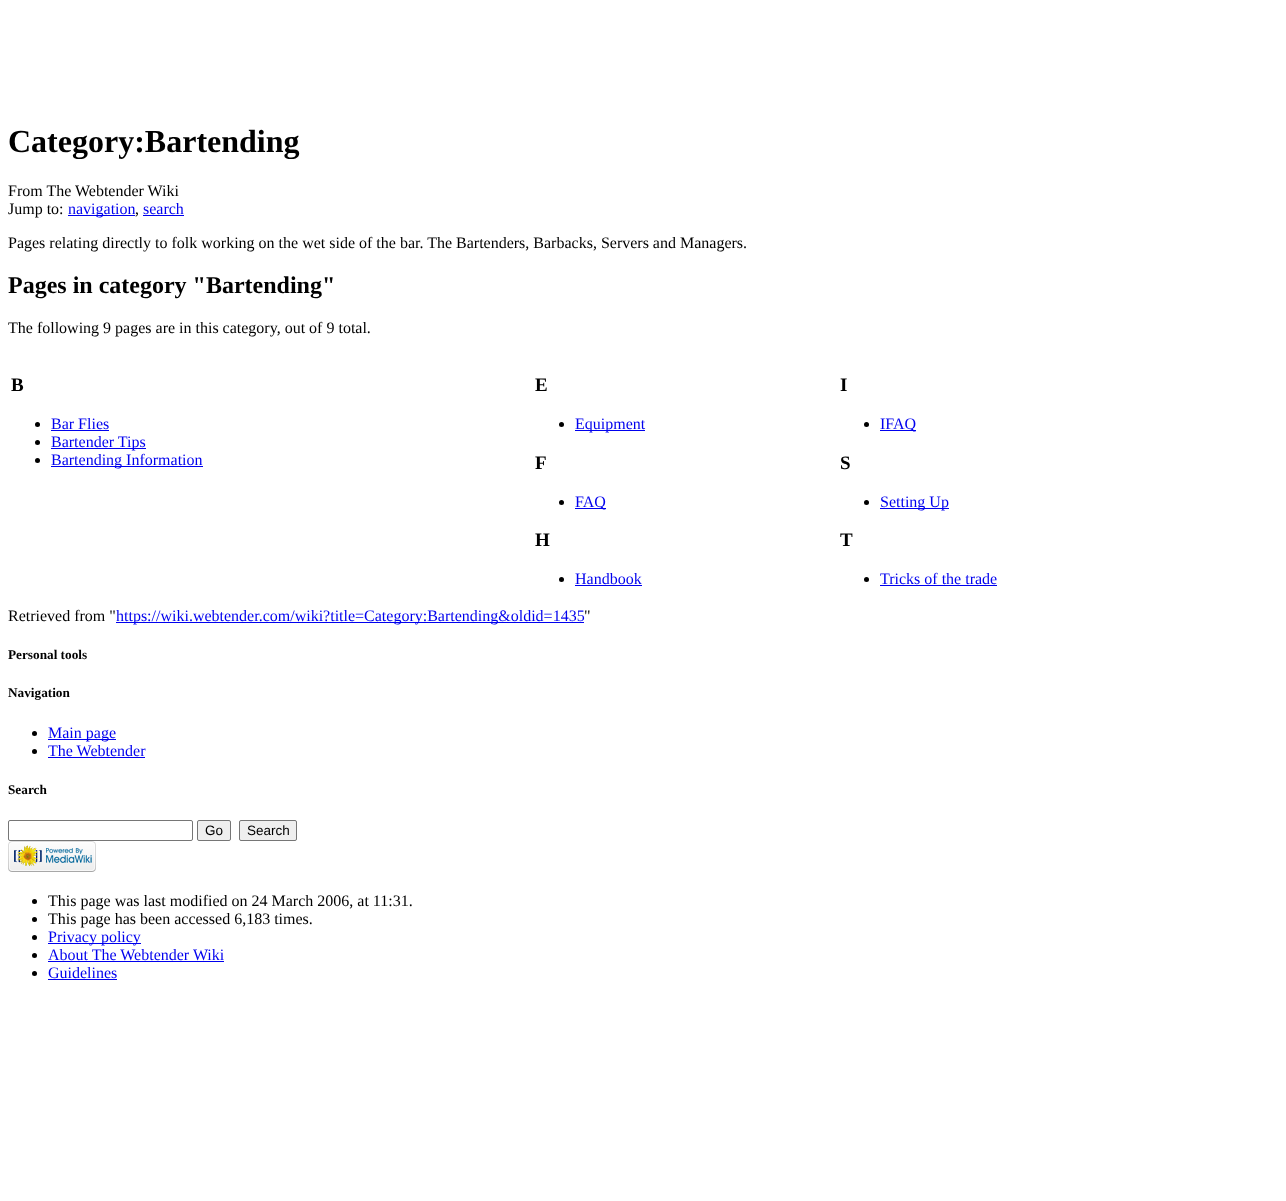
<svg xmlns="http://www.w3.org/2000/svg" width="1286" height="1201">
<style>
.a{font:bold 32px Liberation Serif;fill:#000}
.b{font:16px Liberation Serif;fill:#000}
.c{font:16px Liberation Serif;fill:#00e}
.d{font:bold 24px Liberation Serif;fill:#000}
.e{font:bold 19px Liberation Serif;fill:#000}
.f{font:bold 13.25px Liberation Serif;fill:#000}
.g{font:13.5px Liberation Sans;fill:#000}
</style>
<rect width="100%" height="100%" fill="#fff"/>
<path fill="#00e" d="M68 215h67v1H68z"/>
<path fill="#00e" d="M143 215h41v1H143z"/>
<circle fill="#000" cx="37.5" cy="424.5" r="2.5"/>
<path fill="#00e" d="M51 430h58v1H51z"/>
<circle fill="#000" cx="37.5" cy="442.5" r="2.5"/>
<path fill="#00e" d="M51 448h95v1H51z"/>
<circle fill="#000" cx="37.5" cy="460.5" r="2.5"/>
<path fill="#00e" d="M51 466h152v1H51z"/>
<circle fill="#000" cx="561.5" cy="424.5" r="2.5"/>
<path fill="#00e" d="M575 430h70v1H575z"/>
<circle fill="#000" cx="561.5" cy="502.5" r="2.5"/>
<path fill="#00e" d="M575 508h31v1H575z"/>
<circle fill="#000" cx="561.5" cy="579.5" r="2.5"/>
<path fill="#00e" d="M575 585h67v1H575z"/>
<circle fill="#000" cx="866.5" cy="424.5" r="2.5"/>
<path fill="#00e" d="M880 430h36v1H880z"/>
<circle fill="#000" cx="866.5" cy="502.5" r="2.5"/>
<path fill="#00e" d="M880 508h69v1H880z"/>
<circle fill="#000" cx="866.5" cy="579.5" r="2.5"/>
<path fill="#00e" d="M880 585h117v1H880z"/>
<path fill="#00e" d="M116 622h468v1H116z"/>
<circle fill="#000" cx="34.5" cy="733.5" r="2.5"/>
<path fill="#00e" d="M48 739h68v1H48z"/>
<circle fill="#000" cx="34.5" cy="751.5" r="2.5"/>
<path fill="#00e" d="M48 757h97v1H48z"/>
<rect fill="none" stroke="#767676" x="8.5" y="820.5" width="184" height="20" rx="1.5"/>
<rect fill="#efefef" stroke="#767676" x="197.5" y="820.5" width="33" height="20" rx="1.5"/>
<rect fill="#efefef" stroke="#767676" x="239.5" y="820.5" width="57" height="20" rx="1.5"/>
<image href="1.png" x="8" y="841" width="88" height="31"/>
<circle fill="#000" cx="34.5" cy="901.5" r="2.5"/>
<circle fill="#000" cx="34.5" cy="919.5" r="2.5"/>
<circle fill="#000" cx="34.5" cy="937.5" r="2.5"/>
<path fill="#00e" d="M48 943h93v1H48z"/>
<circle fill="#000" cx="34.5" cy="955.5" r="2.5"/>
<path fill="#00e" d="M48 961h176v1H48z"/>
<circle fill="#000" cx="34.5" cy="973.5" r="2.5"/>
<path fill="#00e" d="M48 979h69v1H48z"/>
<text class="a" x="8" y="152">Category:Bartending</text>
<text class="b" x="8" y="196">From The Webtender Wiki</text>
<text class="b" x="8" y="214">Jump to:</text>
<text class="c" x="68" y="214">navigation</text>
<text class="b" x="135" y="214">,</text>
<text class="c" x="143" y="214">search</text>
<text class="b" x="8" y="248">Pages relating directly to folk working on the wet side of the bar. The Bartenders, Barbacks, Servers and Managers.</text>
<text class="d" x="8" y="293">Pages in category "Bartending"</text>
<text class="b" x="8" y="333">The following 9 pages are in this category, out of 9 total.</text>
<text class="e" x="11" y="391">B</text>
<text class="c" x="51" y="429">Bar Flies</text>
<text class="c" x="51" y="447">Bartender Tips</text>
<text class="c" x="51" y="465">Bartending Information</text>
<text class="e" x="535" y="391">E</text>
<text class="c" x="575" y="429">Equipment</text>
<text class="e" x="535" y="469">F</text>
<text class="c" x="575" y="507">FAQ</text>
<text class="e" x="535" y="546">H</text>
<text class="c" x="575" y="584">Handbook</text>
<text class="e" x="840" y="391">I</text>
<text class="c" x="880" y="429">IFAQ</text>
<text class="e" x="840" y="469">S</text>
<text class="c" x="880" y="507">Setting Up</text>
<text class="e" x="840" y="546">T</text>
<text class="c" x="880" y="584">Tricks of the trade</text>
<text class="b" x="8" y="621">Retrieved from "</text>
<text class="c" x="116" y="621">https://wiki.webtender.com/wiki?title=Category:Bartending&amp;oldid=1435</text>
<text class="b" x="584" y="621">"</text>
<text class="f" x="8" y="659">Personal tools</text>
<text class="f" x="8" y="697">Navigation</text>
<text class="c" x="48" y="738">Main page</text>
<text class="c" x="48" y="756">The Webtender</text>
<text class="f" x="8" y="794">Search</text>
<text class="g" x="205" y="835">Go</text>
<text class="g" x="247" y="835">Search</text>
<text class="b" x="48" y="906">This page was last modified on 24 March 2006, at 11:31.</text>
<text class="b" x="48" y="924">This page has been accessed 6,183 times.</text>
<text class="c" x="48" y="942">Privacy policy</text>
<text class="c" x="48" y="960">About The Webtender Wiki</text>
<text class="c" x="48" y="978">Guidelines</text>
</svg>
